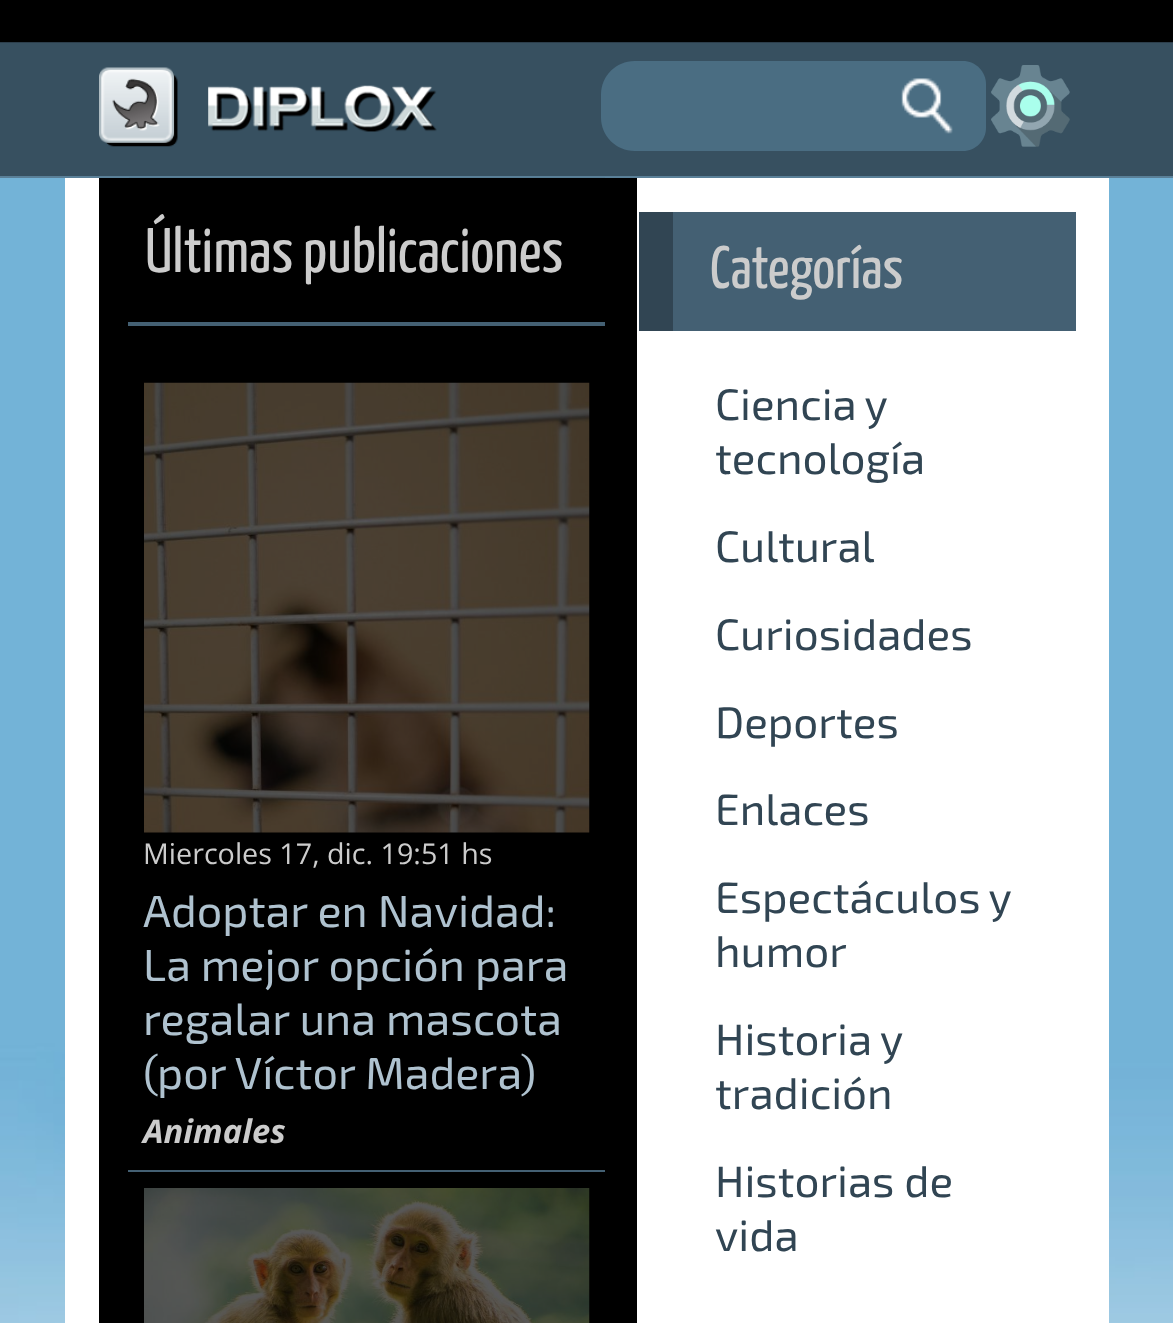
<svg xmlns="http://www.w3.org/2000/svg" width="1173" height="1323">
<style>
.a{font:200 63px Yanone Kaffeesatz;fill:#ccc}
.b{font:28.7px Open Sans;fill:#ccc}
.c{font:45px 'Exo 2';fill:#afc2cf}
.d{font:italic bold 32.75px Open Sans;fill:#ccc}
.e{font:200 60px Yanone Kaffeesatz;fill:#ccc}
.f{font:44px 'Exo 2';fill:#314553}
</style>
<rect width="100%" height="100%" fill="#fff"/>
<image href="1.png" x="0" y="43" width="1173" height="1280"/>
<path fill="#000" d="M0 0h1173v43H0z"/>
<path fill="#314553e6" d="M0 42h1173v134H0z"/>
<path fill="#5a8098" d="M0 176h1173v2H0z"/>
<image href="2.png" x="99" y="67" width="338" height="80"/>
<path fill="#4a6d82" d="M634.5 61h33.5v90h-33.5c-18.5 0-33.5-15-33.5-33.5v-23c0-18.5 15-33.5 33.5-33.5z"/>
<path fill="#4a6d82" d="M668 61h205v90H668z"/>
<path fill="#4a6d82" d="M873 61h90c12.5 0 23 10.5 23 23v44c0 12.5-10.5 23-23 23h-90z"/>
<image href="3.png" x="901" y="78" width="52" height="56"/>
<image href="4.png" x="991" y="65" width="79" height="82"/>
<path fill="#fff" d="M65 178h1044v1145H65z"/>
<path fill="#000" d="M99 178h538v1145H99z"/>
<path fill="#567b92" d="M129 177h476v1H129z"/>
<path fill="#446073" d="M128 322h477v4H128z"/>
<image href="5.png" x="144" y="382" width="446" height="451"/>
<path fill="#446073" d="M128 1170h477v2H128z"/>
<image href="6.png" x="144" y="1188" width="446" height="135"/>
<path fill="#446073" d="M673 212h403v119H673z"/>
<path fill="#314553" d="M639 212h34v119H639z"/>
<text class="a" x="145" y="272">Últimas publicaciones</text>
<text class="b" x="143" y="864">Miercoles 17, dic. 19:51 hs</text>
<text class="c" x="143" y="927">Adoptar en Navidad:</text>
<text class="c" x="143" y="981">La mejor opción para</text>
<text class="c" x="143" y="1035">regalar una mascota</text>
<text class="c" x="143" y="1089">(por Víctor Madera)</text>
<text class="d" x="143" y="1143">Animales</text>
<text class="e" x="710" y="288">Categorías</text>
<text class="f" x="715" y="420" word-spacing="-1">Ciencia y</text>
<text class="f" x="715" y="474">tecnología</text>
<text class="f" x="715" y="562">Cultural</text>
<text class="f" x="715" y="650">Curiosidades</text>
<text class="f" x="715" y="738">Deportes</text>
<text class="f" x="715" y="825">Enlaces</text>
<text class="f" x="715" y="913" word-spacing="-1">Espectáculos y</text>
<text class="f" x="715" y="967">humor</text>
<text class="f" x="715" y="1055" word-spacing="-1">Historia y</text>
<text class="f" x="715" y="1109">tradición</text>
<text class="f" x="715" y="1197">Historias de</text>
<text class="f" x="715" y="1251">vida</text>
</svg>
